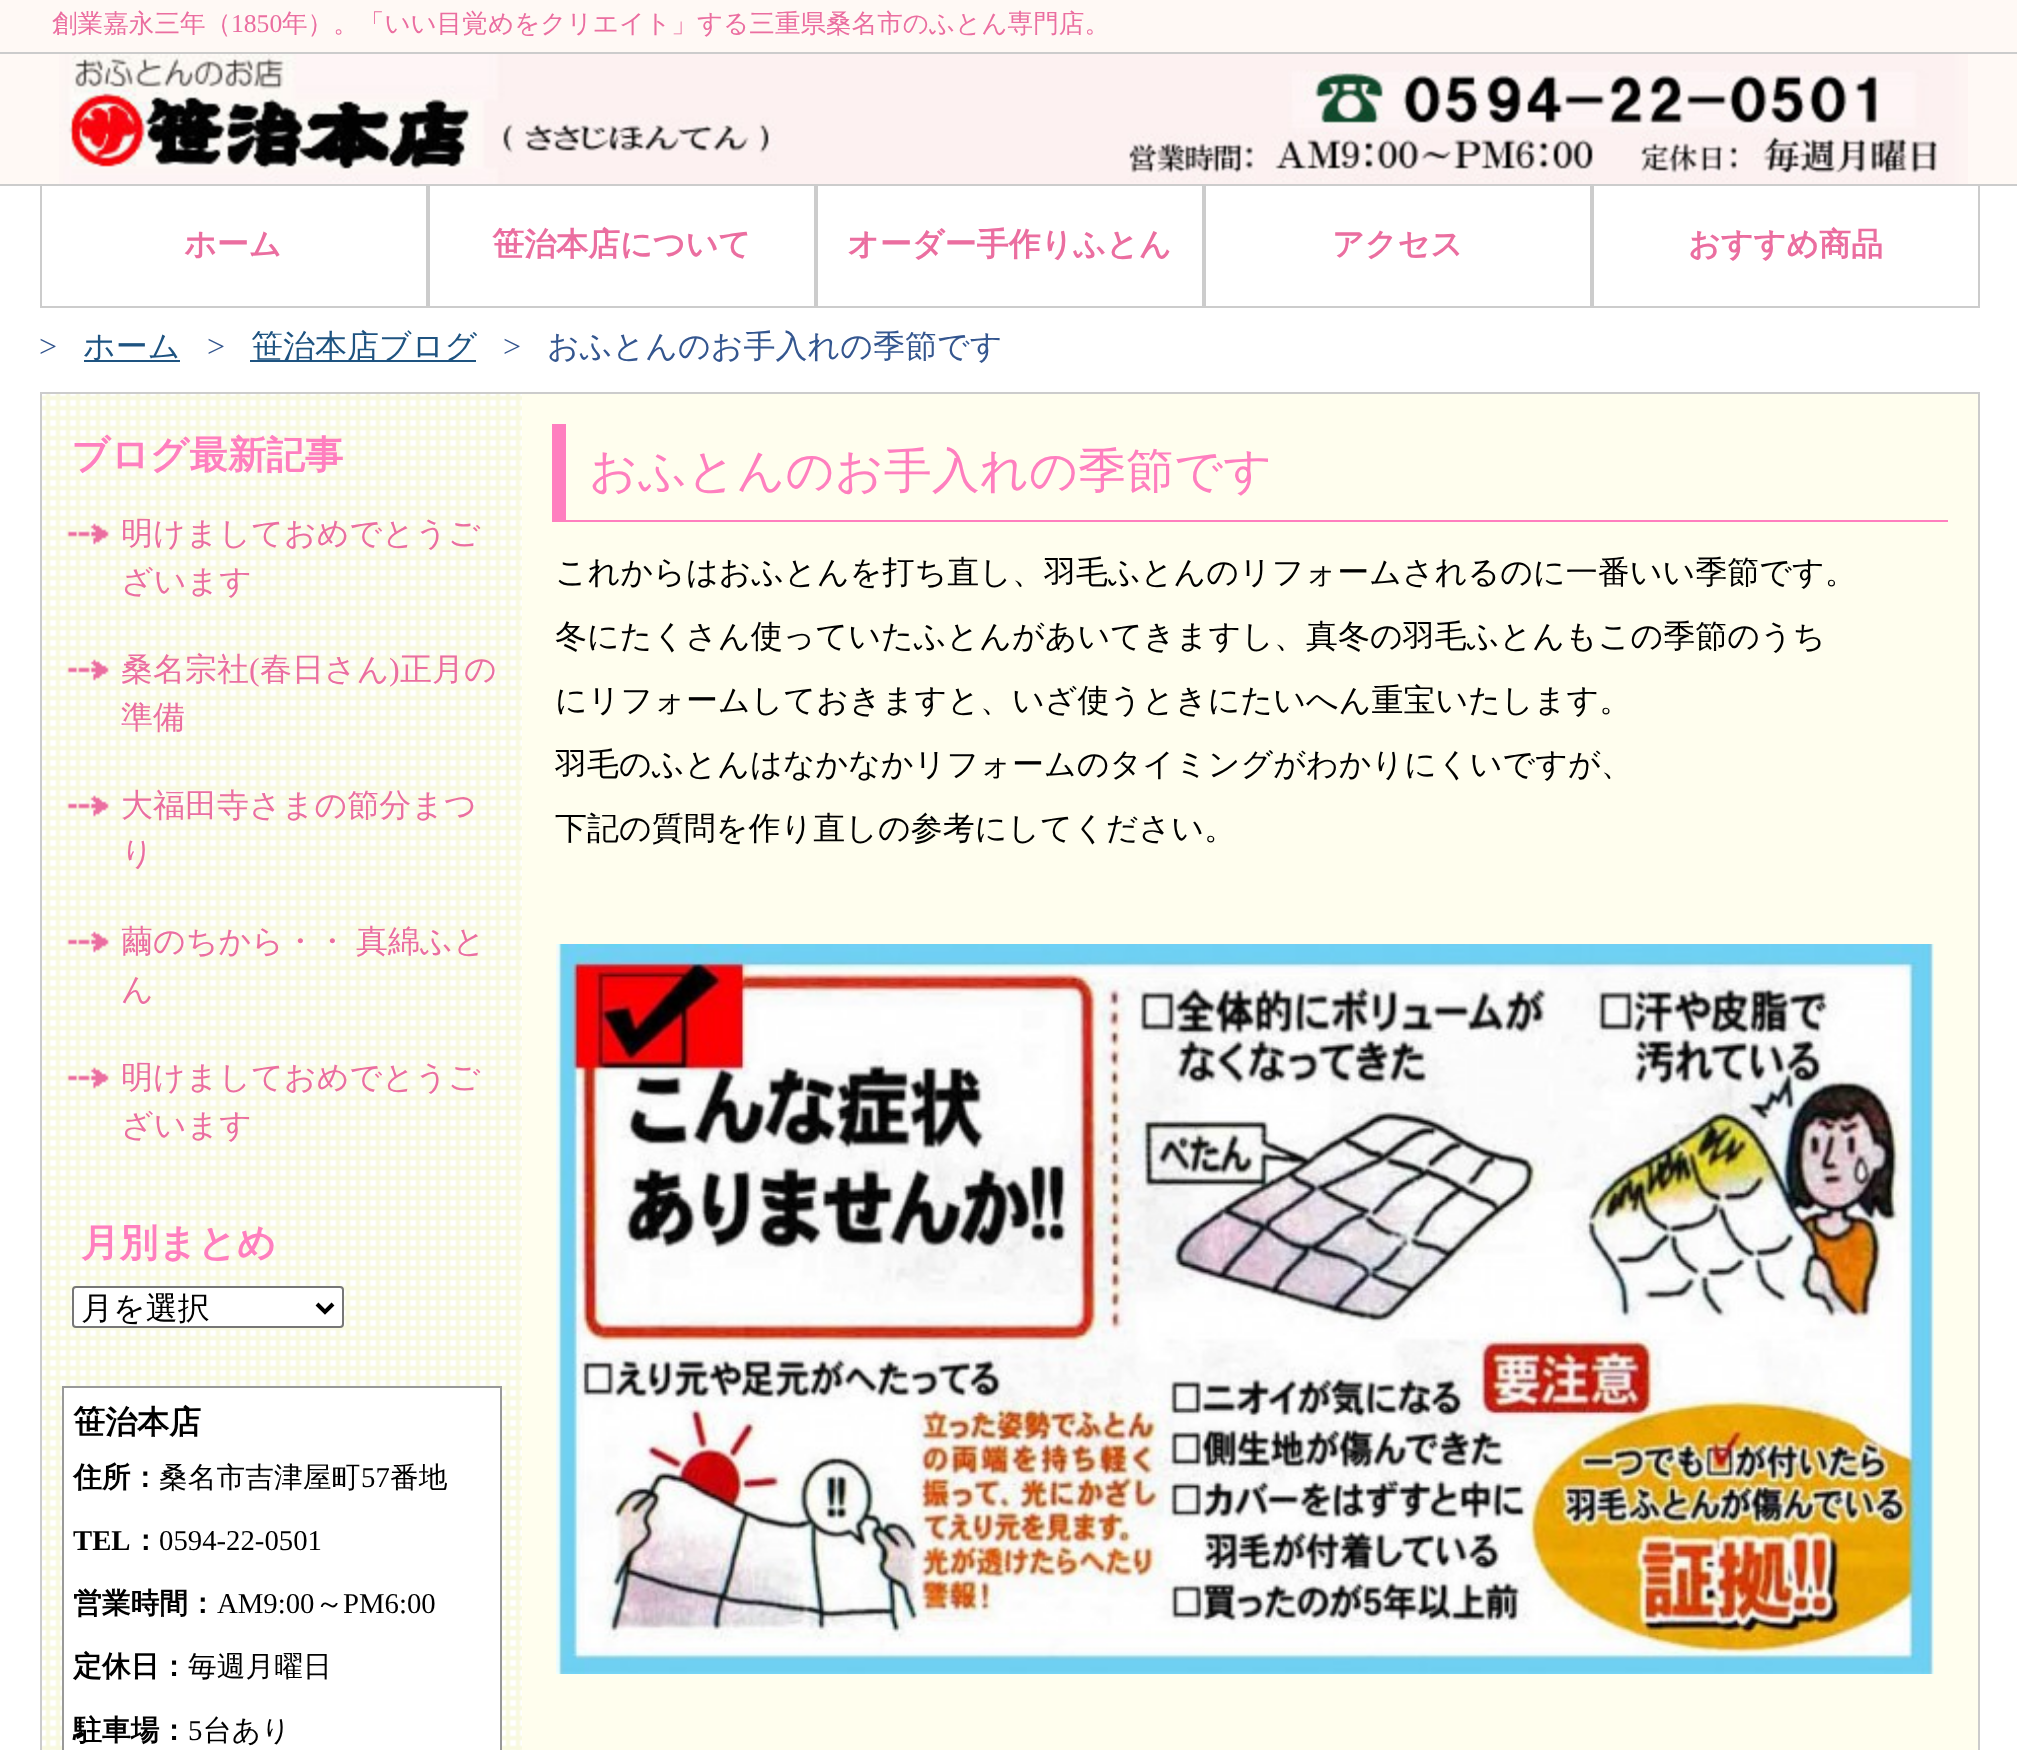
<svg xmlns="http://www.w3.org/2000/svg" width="2017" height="1750">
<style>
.a{font:500 25.6px WenQuanYi Zen Hei;fill:#eb6ea0}
.b{font:25.6px Liberation Serif;fill:#eb6ea0}
.c{font:bold 32px WenQuanYi Zen Hei;fill:#eb6ea0}
.d{font:32px Liberation Serif;fill:#34568f}
.e{font:500 32px WenQuanYi Zen Hei;fill:#1e5381}
.f{font:500 32px WenQuanYi Zen Hei;fill:#34568f}
.g{font:bold 38.5px WenQuanYi Zen Hei;fill:#ff7fbf}
.h{font:500 32px WenQuanYi Zen Hei;fill:#eb6ea0}
.i{font:32px Liberation Serif;fill:#eb6ea0}
.j{font:500 32px WenQuanYi Zen Hei;fill:#000}
.k{font:bold 32px WenQuanYi Zen Hei;fill:#000}
.l{font:bold 28.75px WenQuanYi Zen Hei;fill:#000}
.m{font:500 28.75px WenQuanYi Zen Hei;fill:#000}
.n{font:28.75px Liberation Serif;fill:#000}
.o{font:bold 28.75px Liberation Serif;fill:#000}
.p{font:500 48px WenQuanYi Zen Hei;fill:#ff7fbf}
</style>
<rect width="100%" height="100%" fill="#fff"/>
<path fill="#fff9f5" d="M0 0h2017v52H0z"/>
<path fill="#ccc" d="M0 52h2017v2H0z"/>
<path fill="#fff9f5" d="M0 54h2017v130H0z"/>
<path fill="#ccc" d="M0 184h2017v2H0z"/>
<image href="1.png" x="59" y="54" width="1909" height="130"/>
<path fill="#ccc" d="M40 306h1940v2H40z"/>
<path fill="#ccc" d="M426 186h4v120H426z"/>
<path fill="#ccc" d="M40 186h2v120H40z"/>
<path fill="#ccc" d="M814 186h4v120H814z"/>
<path fill="#ccc" d="M1202 186h4v120H1202z"/>
<path fill="#ccc" d="M1590 186h4v120H1590z"/>
<path fill="#ccc" d="M1978 186h2v120H1978z"/>
<path fill="#1e5381" d="M84 360h96v2H84z"/>
<path fill="#1e5381" d="M250 360h226v2H250z"/>
<path fill="none" stroke="#ccc" stroke-width="2" d="M41 393h1938v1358H41z"/>
<image href="2.png" x="42" y="394" width="480" height="1356"/>
<image href="3.png" x="67" y="523" width="42" height="22"/>
<image href="4.png" x="67" y="659" width="42" height="22"/>
<image href="5.png" x="67" y="795" width="42" height="22"/>
<image href="6.png" x="67" y="931" width="42" height="22"/>
<image href="7.png" x="67" y="1067" width="42" height="22"/>
<rect fill="#fff" stroke="#767676" stroke-width="2" x="73" y="1287" width="270" height="40" rx="3"/>
<path fill="none" stroke="#000" stroke-width="4" d="M317 1304l8 8l8-8"/>
<path fill="#fff" stroke="#999" stroke-width="2" d="M63 1387h438v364H63z"/>
<path fill="#fffeee" d="M522 394h1456v1356H522z"/>
<path fill="#ff7fbf" d="M566 520h1382v2H566z"/>
<path fill="#ff7fbf" d="M552 424h14v98H552z"/>
<image href="8.png" x="556" y="944" width="1378" height="730"/>
<text class="a" x="52" y="32">創業嘉永三年（</text>
<text class="b" x="231" y="32">1850</text>
<text class="a" x="282" y="32">年）。「いい目覚めをクリエイト」する三重県桑名市のふとん専門店。</text>
<text class="c" x="184" y="255">ホーム</text>
<text class="c" x="492" y="255">笹治本店について</text>
<text class="c" x="847" y="255">オーダー手作りふとん</text>
<text class="c" x="1332" y="255">アクセス</text>
<text class="c" x="1688" y="255">おすすめ商品</text>
<text class="d" x="39" y="357">&gt;</text>
<text class="e" x="83" y="357">ホーム</text>
<text class="d" x="207" y="357">&gt;</text>
<text class="e" x="251" y="357">笹治本店ブログ</text>
<text class="d" x="503" y="357">&gt;</text>
<text class="f" x="547" y="357">おふとんのお手入れの季節です</text>
<text class="g" x="71" y="468">ブログ最新記事</text>
<text class="h" x="121" y="544">明けましておめでとうご</text>
<text class="h" x="121" y="592">ざいます</text>
<text class="h" x="121" y="680">桑名宗社</text>
<text class="i" x="249" y="680">(</text>
<text class="h" x="260" y="680">春日さん</text>
<text class="i" x="389" y="680">)</text>
<text class="h" x="400" y="680">正月の</text>
<text class="h" x="121" y="728">準備</text>
<text class="h" x="121" y="816">大福田寺さまの節分まつ</text>
<text class="h" x="121" y="864">り</text>
<text class="h" x="121" y="952">繭のちから・・</text>
<text class="h" x="356" y="952">真綿ふと</text>
<text class="h" x="121" y="1000">ん</text>
<text class="h" x="121" y="1088">明けましておめでとうご</text>
<text class="h" x="121" y="1136">ざいます</text>
<text class="g" x="81" y="1256">月別まとめ</text>
<text class="j" x="81" y="1319">月を選択</text>
<text class="k" x="73" y="1433">笹治本店</text>
<text class="l" x="73" y="1487">住所：</text>
<text class="m" x="159" y="1487">桑名市吉津屋町</text>
<text class="n" x="361" y="1487">57</text>
<text class="m" x="390" y="1487">番地</text>
<text class="o" x="73" y="1550">TEL</text>
<text class="l" x="131" y="1550">：</text>
<text class="n" x="159" y="1550">0594-22-0501</text>
<text class="l" x="73" y="1613">営業時間：</text>
<text class="n" x="217" y="1613">AM9:00</text>
<text class="m" x="315" y="1613">～</text>
<text class="n" x="343" y="1613">PM6:00</text>
<text class="l" x="73" y="1676">定休日：</text>
<text class="m" x="188" y="1676">毎週月曜日</text>
<text class="l" x="73" y="1740">駐車場：</text>
<text class="n" x="188" y="1740">5</text>
<text class="m" x="203" y="1740">台あり</text>
<text class="p" x="589" y="487">おふとんのお手入れの季節です</text>
<text class="j" x="555" y="583">これからはおふとんを打ち直し、羽毛ふとんのリフォームされるのに一番いい季節です。</text>
<text class="j" x="555" y="647">冬にたくさん使っていたふとんがあいてきますし、真冬の羽毛ふとんもこの季節のうち</text>
<text class="j" x="555" y="711">にリフォームしておきますと、いざ使うときにたいへん重宝いたします。</text>
<text class="j" x="555" y="775">羽毛のふとんはなかなかリフォームのタイミングがわかりにくいですが、</text>
<text class="j" x="555" y="839">下記の質問を作り直しの参考にしてください。</text>
</svg>
